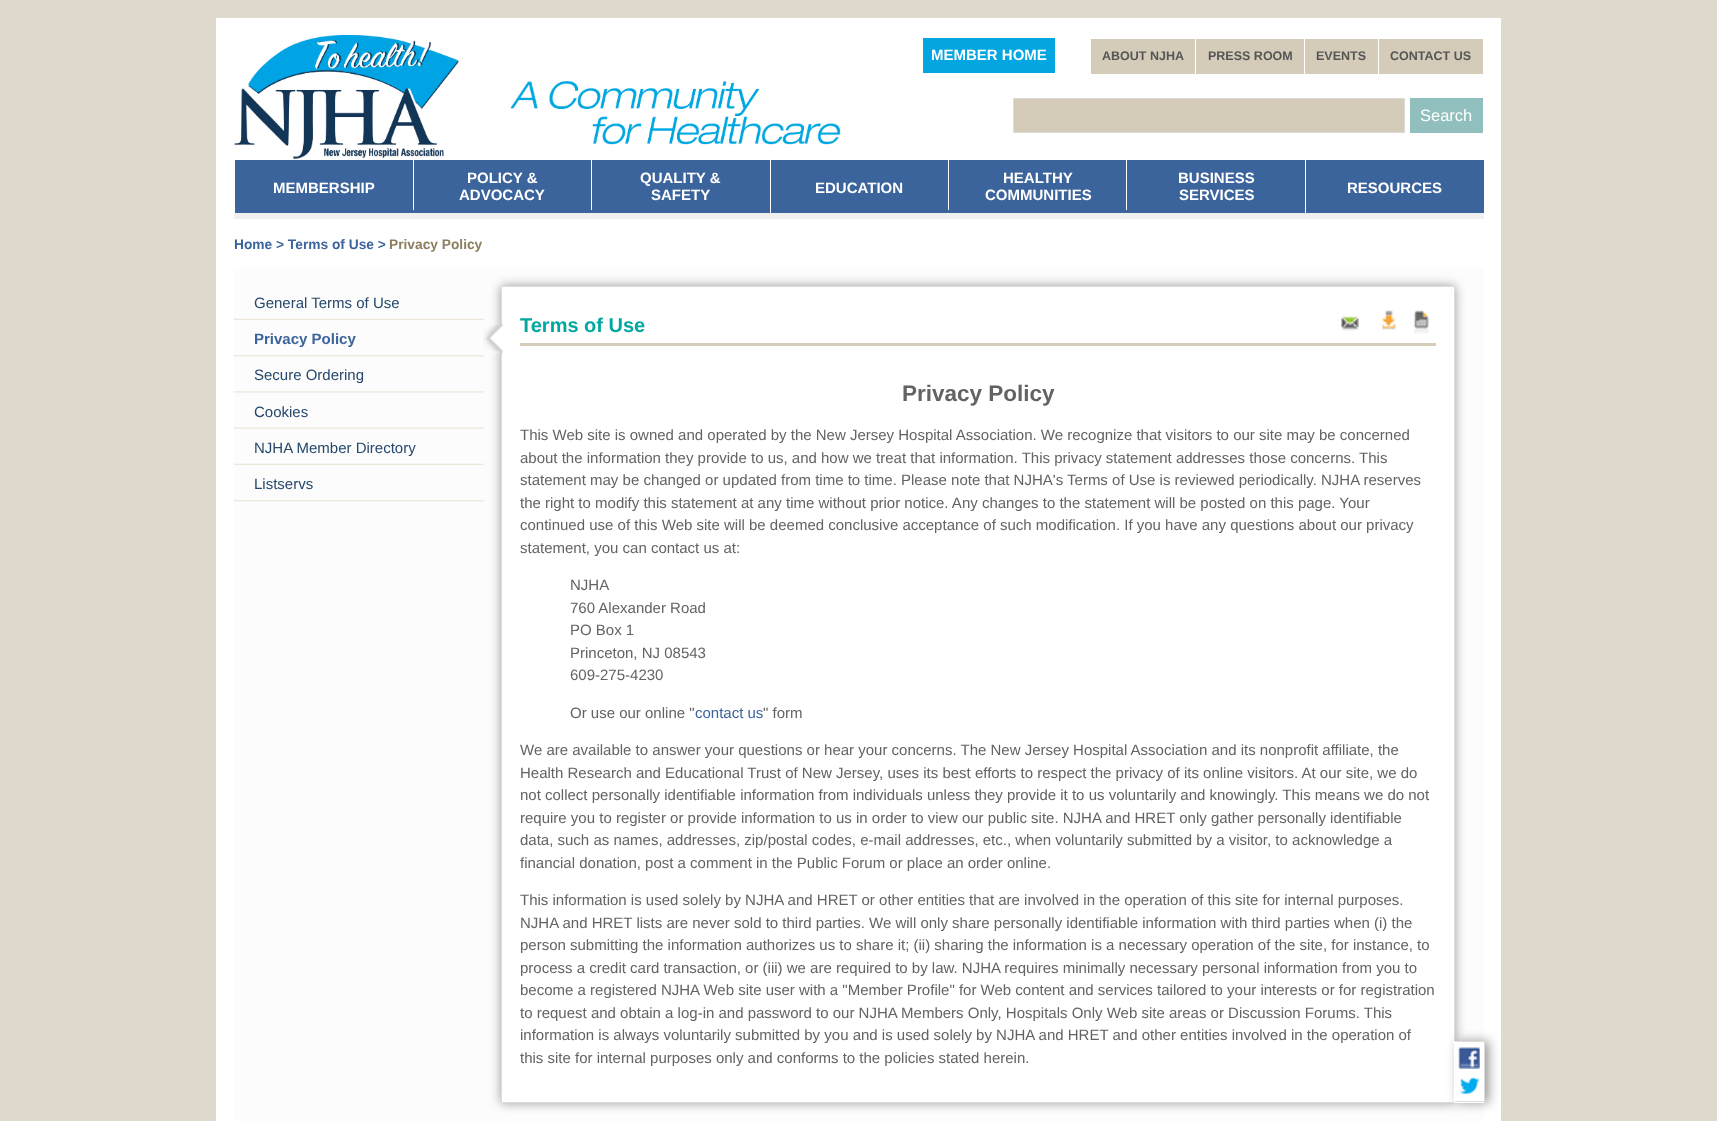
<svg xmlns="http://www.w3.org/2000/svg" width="1717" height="1121">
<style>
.a{font:bold 15px Liberation Sans;fill:#fff}
.b{font:bold 12.5px Liberation Sans;fill:#555}
.c{font:16.5px Liberation Sans;fill:#fff}
.d{font:bold 13.75px Liberation Sans;fill:#3b639c}
.e{font:bold 13.75px Liberation Sans;fill:#8c7f60}
.f{font:15px Liberation Sans;fill:#26486c}
.g{font:bold 15px Liberation Sans;fill:#3b639c}
.h{font:bold 20px Liberation Sans;fill:#01a8a0}
.i{font:bold 22.5px Liberation Sans;fill:#636363}
.j{font:15px Liberation Sans;fill:#636363}
.k{font:15px Liberation Sans;fill:#3b639c}
</style>
<rect width="100%" height="100%" fill="#dfdacd"/>
<path fill="#fff" d="M216 18h1285v1103H216z"/>
<image href="1.png" x="234" y="35" width="225" height="125"/>
<image href="2.png" x="510" y="81" width="331" height="64"/>
<path fill="#04a6e1" d="M923 38h132v35H923z"/>
<path fill="#d4ccb9" d="M1091 39h104v35H1091z"/>
<path fill="#d4ccb9" d="M1196 39h108v35H1196z"/>
<path fill="#d4ccb9" d="M1305 39h73v35H1305z"/>
<path fill="#d4ccb9" d="M1379 39h104v35H1379z"/>
<path fill="#d4ccb9" stroke="#dedbd5" d="M1013.5 98.5h391v34H1013.5z"/>
<path fill="#90bfbd" d="M1410 98h73v35H1410z"/>
<path fill="#3b639c" d="M235 160h1249v53H235z"/>
<path fill="#f0f0f0" d="M234 213h1250v6H234z"/>
<path fill="#fff" d="M413 160h1v50H413z"/>
<path fill="#fff" d="M591 160h1v50H591z"/>
<path fill="#fff" d="M770 160h1v53H770z"/>
<path fill="#fff" d="M948 160h1v50H948z"/>
<path fill="#fff" d="M1126 160h1v50H1126z"/>
<path fill="#fff" d="M1305 160h1v53H1305z"/>
<path fill="#fcfcfc" d="M234 269h1250v852H234z"/>
<image href="3.png" x="233" y="318" width="251" height="2"/>
<image href="4.png" x="233" y="355" width="251" height="2"/>
<image href="5.png" x="233" y="391" width="251" height="2"/>
<image href="6.png" x="233" y="427" width="251" height="2"/>
<image href="3.png" x="233" y="463" width="251" height="2"/>
<image href="4.png" x="233" y="500" width="251" height="2"/>
<path fill="#35353580" filter="blur(5.5px)" d="M501 286h954v817H501z"/>
<path fill="#fff" stroke="#ddd" d="M501.5 286.5h953v816H501.5z"/>
<image href="7.png" x="483" y="323" width="20" height="31"/>
<path fill="#d4ccb9" d="M520 343h916v3H520z"/>
<image href="8.png" x="1341" y="316" width="19" height="15"/>
<image href="9.png" x="1381" y="310" width="16" height="21"/>
<image href="10.png" x="1413" y="310" width="16" height="24"/>
<path fill="#35353580" filter="blur(5.5px)" d="M1458 1041h31v62H1458z"/>
<path fill="#fff" d="M1455 1042h29v61H1455z"/>
<path fill="#ddd" d="M1454 1041h31v1H1454z"/>
<path fill="#ddd" d="M1484 1041h1v62H1484z"/>
<path fill="#ddd" d="M1454 1101h31v1H1454z"/>
<path fill="#fff" d="M1454 1041h1v62H1454z"/>
<image href="11.png" x="1458" y="1047" width="22" height="22"/>
<image href="12.png" x="1460" y="1077" width="20" height="18"/>
<text class="a" x="931" y="60">MEMBER HOME</text>
<text class="b" x="1102" y="60">ABOUT NJHA</text>
<text class="b" x="1208" y="60">PRESS ROOM</text>
<text class="b" x="1316" y="60">EVENTS</text>
<text class="b" x="1390" y="60">CONTACT US</text>
<text class="c" x="1420" y="121">Search</text>
<text class="a" x="273" y="193">MEMBERSHIP</text>
<text class="a" x="467" y="183">POLICY &amp;</text>
<text class="a" x="459" y="200">ADVOCACY</text>
<text class="a" x="640" y="183">QUALITY &amp;</text>
<text class="a" x="651" y="200">SAFETY</text>
<text class="a" x="815" y="193">EDUCATION</text>
<text class="a" x="1003" y="183">HEALTHY</text>
<text class="a" x="985" y="200">COMMUNITIES</text>
<text class="a" x="1178" y="183">BUSINESS</text>
<text class="a" x="1179" y="200">SERVICES</text>
<text class="a" x="1347" y="193">RESOURCES</text>
<text class="d" x="234" y="249">Home &gt; Terms of Use &gt;</text>
<text class="e" x="389" y="249">Privacy Policy</text>
<text class="f" x="254" y="308">General Terms of Use</text>
<text class="g" x="254" y="344">Privacy Policy</text>
<text class="f" x="254" y="380">Secure Ordering</text>
<text class="f" x="254" y="417">Cookies</text>
<text class="f" x="254" y="453">NJHA Member Directory</text>
<text class="f" x="254" y="489">Listservs</text>
<text class="h" x="520" y="332">Terms of Use</text>
<text class="i" x="902" y="401">Privacy Policy</text>
<text class="j" x="520" y="440">This Web site is owned and operated by the New Jersey Hospital Association. We recognize that visitors to our site may be concerned</text>
<text class="j" x="520" y="463">about the information they provide to us, and how we treat that information. This privacy statement addresses those concerns. This</text>
<text class="j" x="520" y="485">statement may be changed or updated from time to time. Please note that NJHA's Terms of Use is reviewed periodically. NJHA reserves</text>
<text class="j" x="520" y="508">the right to modify this statement at any time without prior notice. Any changes to the statement will be posted on this page. Your</text>
<text class="j" x="520" y="530">continued use of this Web site will be deemed conclusive acceptance of such modification. If you have any questions about our privacy</text>
<text class="j" x="520" y="553">statement, you can contact us at:</text>
<text class="j" x="570" y="590">NJHA</text>
<text class="j" x="570" y="613">760 Alexander Road</text>
<text class="j" x="570" y="635">PO Box 1</text>
<text class="j" x="570" y="658">Princeton, NJ 08543</text>
<text class="j" x="570" y="680">609-275-4230</text>
<text class="j" x="570" y="718">Or use our online "</text>
<text class="k" x="695" y="718">contact us</text>
<text class="j" x="763" y="718">" form</text>
<text class="j" x="520" y="755">We are available to answer your questions or hear your concerns. The New Jersey Hospital Association and its nonprofit affiliate, the</text>
<text class="j" x="520" y="778">Health Research and Educational Trust of New Jersey, uses its best efforts to respect the privacy of its online visitors. At our site, we do</text>
<text class="j" x="520" y="800">not collect personally identifiable information from individuals unless they provide it to us voluntarily and knowingly. This means we do not</text>
<text class="j" x="520" y="823">require you to register or provide information to us in order to view our public site. NJHA and HRET only gather personally identifiable</text>
<text class="j" x="520" y="845">data, such as names, addresses, zip/postal codes, e-mail addresses, etc., when voluntarily submitted by a visitor, to acknowledge a</text>
<text class="j" x="520" y="868">financial donation, post a comment in the Public Forum or place an order online.</text>
<text class="j" x="520" y="905">This information is used solely by NJHA and HRET or other entities that are involved in the operation of this site for internal purposes.</text>
<text class="j" x="520" y="928">NJHA and HRET lists are never sold to third parties. We will only share personally identifiable information with third parties when (i) the</text>
<text class="j" x="520" y="950">person submitting the information authorizes us to share it; (ii) sharing the information is a necessary operation of the site, for instance, to</text>
<text class="j" x="520" y="973">process a credit card transaction, or (iii) we are required to by law. NJHA requires minimally necessary personal information from you to</text>
<text class="j" x="520" y="995">become a registered NJHA Web site user with a "Member Profile" for Web content and services tailored to your interests or for registration</text>
<text class="j" x="520" y="1018">to request and obtain a log-in and password to our NJHA Members Only, Hospitals Only Web site areas or Discussion Forums. This</text>
<text class="j" x="520" y="1040">information is always voluntarily submitted by you and is used solely by NJHA and HRET and other entities involved in the operation of</text>
<text class="j" x="520" y="1063">this site for internal purposes only and conforms to the policies stated herein.</text>
</svg>
